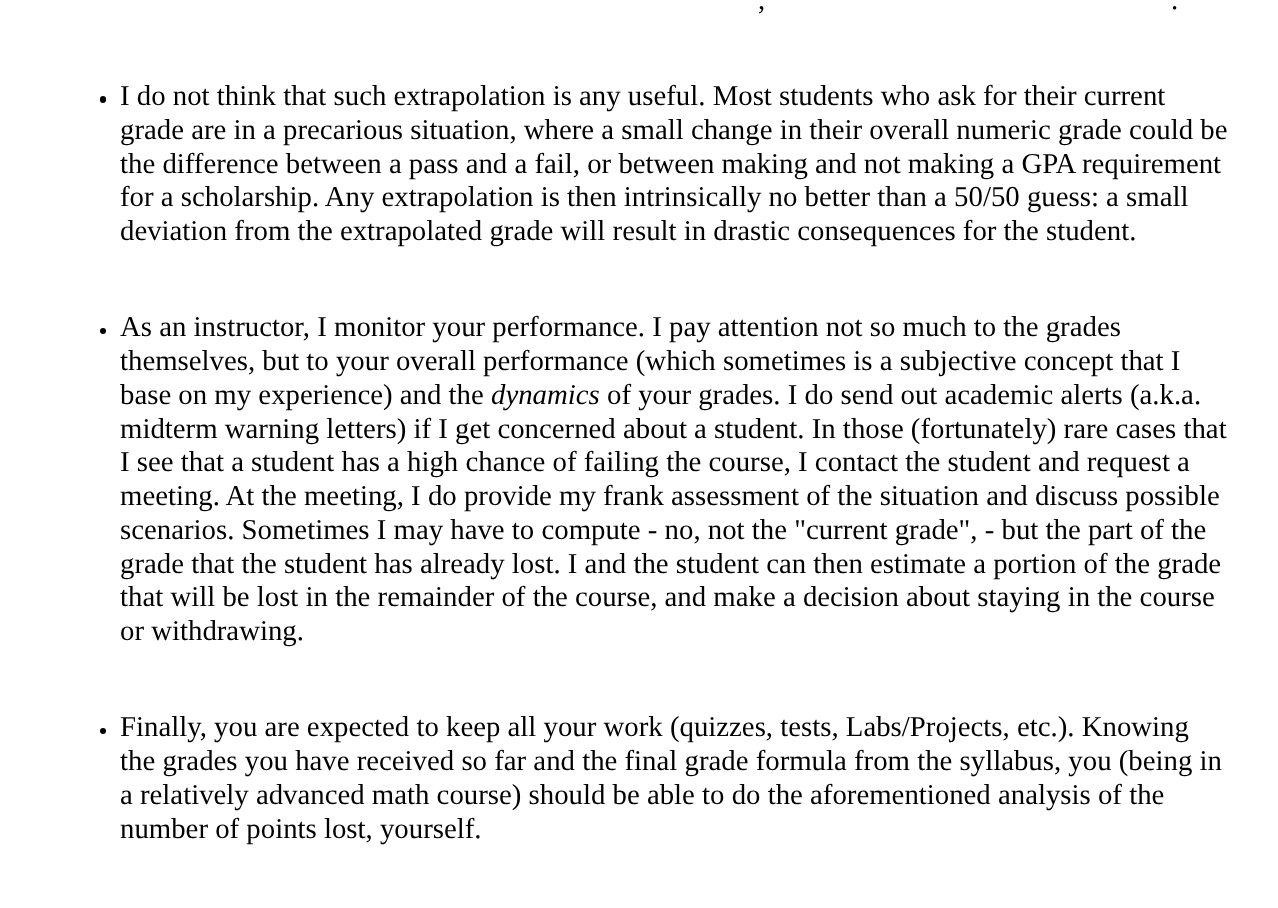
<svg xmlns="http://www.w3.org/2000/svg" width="1278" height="908">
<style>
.a{font:28.8px Liberation Serif;fill:#000}
.b{font:italic 28.8px Liberation Serif;fill:#000}
</style>
<rect width="100%" height="100%" fill="#fff"/>
<rect fill="#000" x="100" y="96" width="6" height="7" rx="3"/>
<circle fill="#000" cx="103" cy="331" r="3"/>
<circle fill="#000" cx="103" cy="731" r="3"/>
<text class="a" x="758" y="9">,</text>
<text class="a" x="1171" y="9">.</text>
<text class="a" x="120" y="105">I do not think that such extrapolation is any useful. Most students who ask for their current</text>
<text class="a" x="120" y="139">grade are in a precarious situation, where a small change in their overall numeric grade could be</text>
<text class="a" x="120" y="173">the difference between a pass and a fail, or between making and not making a GPA requirement</text>
<text class="a" x="120" y="206">for a scholarship. Any extrapolation is then intrinsically no better than a 50/50 guess: a small</text>
<text class="a" x="120" y="240">deviation from the extrapolated grade will result in drastic consequences for the student.</text>
<text class="a" x="120" y="336">As an instructor, I monitor your performance. I pay attention not so much to the grades</text>
<text class="a" x="120" y="370">themselves, but to your overall performance (which sometimes is a subjective concept that I</text>
<text class="a" x="120" y="404">base on my experience) and the</text>
<text class="b" x="491" y="404">dynamics</text>
<text class="a" x="607" y="404">of your grades. I do send out academic alerts (a.k.a.</text>
<text class="a" x="120" y="438">midterm warning letters) if I get concerned about a student. In those (fortunately) rare cases that</text>
<text class="a" x="120" y="471">I see that a student has a high chance of failing the course, I contact the student and request a</text>
<text class="a" x="120" y="505">meeting. At the meeting, I do provide my frank assessment of the situation and discuss possible</text>
<text class="a" x="120" y="539">scenarios. Sometimes I may have to compute - no, not the "current grade", - but the part of the</text>
<text class="a" x="120" y="573">grade that the student has already lost. I and the student can then estimate a portion of the grade</text>
<text class="a" x="120" y="606">that will be lost in the remainder of the course, and make a decision about staying in the course</text>
<text class="a" x="120" y="640">or withdrawing.</text>
<text class="a" x="120" y="736">Finally, you are expected to keep all your work (quizzes, tests, Labs/Projects, etc.). Knowing</text>
<text class="a" x="120" y="770">the grades you have received so far and the final grade formula from the syllabus, you (being in</text>
<text class="a" x="120" y="804">a relatively advanced math course) should be able to do the aforementioned analysis of the</text>
<text class="a" x="120" y="838">number of points lost, yourself.</text>
</svg>
